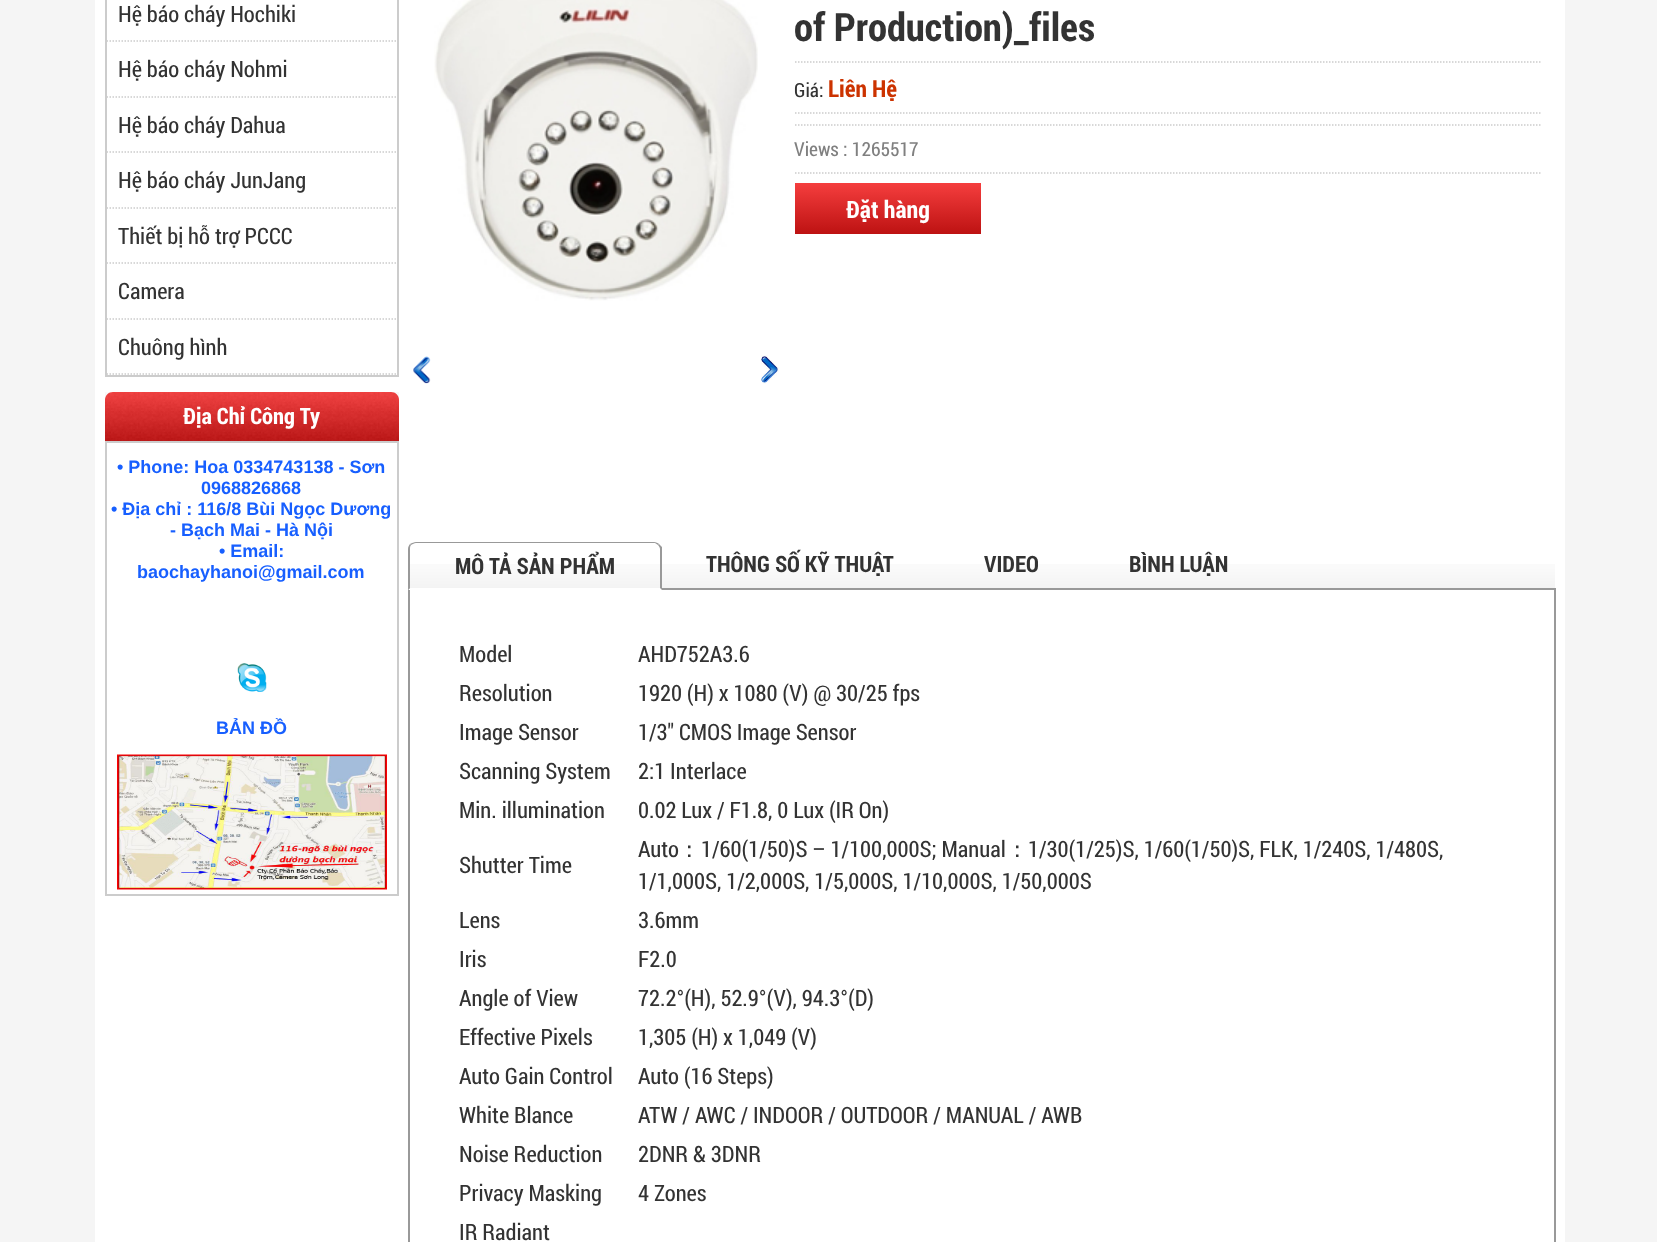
<svg xmlns="http://www.w3.org/2000/svg" width="1657" height="1242">
<style>
.a{font:22.5px Roboto Condensed;fill:#333}
.b{font:bold 22.5px Roboto Condensed;fill:#fff}
.c{font:bold 18px Liberation Sans;fill:#175fff}
.d{font:bold 39px Roboto Condensed;fill:#333}
.e{font:19.5px Roboto Condensed;fill:#333}
.f{font:bold 23.5px Roboto Condensed;fill:#c30}
.g{font:19.5px Roboto Condensed;fill:#808080}
.h{font:bold 24px Roboto Condensed;fill:#fff}
.i{font:bold 22.5px Roboto Condensed;fill:#333}
.j{font:500 22.5px WenQuanYi Zen Hei;fill:#333}
</style>
<defs>
<linearGradient id="g1" gradientUnits="userSpaceOnUse" x1="252" y1="392" x2="252" y2="441"><stop offset="0" stop-color="#f53e3e"/><stop offset="1" stop-color="#bd1212"/></linearGradient>
<linearGradient id="g2" gradientUnits="userSpaceOnUse" x1="888" y1="183" x2="888" y2="234"><stop offset="0" stop-color="#f53e3e"/><stop offset="1" stop-color="#bd1212"/></linearGradient>
</defs>
<rect width="100%" height="100%" fill="#f5f5f5"/>
<path fill="#fff" d="M95 0h1470v1242H95z"/>
<path fill="none" stroke="#ccc" stroke-width="2" d="M106 -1h292v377H106z"/>
<path fill="none" stroke="#ccc" stroke-width="1.5" stroke-dasharray="1.5 1.5" d="M106.5 41h291"/>
<path fill="none" stroke="#ccc" stroke-width="1.5" stroke-dasharray="1.5 1.5" d="M106.5 97h291"/>
<path fill="none" stroke="#ccc" stroke-width="1.5" stroke-dasharray="1.5 1.5" d="M106.5 152h291"/>
<path fill="none" stroke="#ccc" stroke-width="1.5" stroke-dasharray="1.5 1.5" d="M106.5 208h291"/>
<path fill="none" stroke="#ccc" stroke-width="1.5" stroke-dasharray="1.5 1.5" d="M106.5 263h291"/>
<path fill="none" stroke="#ccc" stroke-width="1.5" stroke-dasharray="1.5 1.5" d="M106.5 319h291"/>
<path fill="none" stroke="#ccc" stroke-width="1.5" stroke-dasharray="1.5 1.5" d="M106.5 374h291"/>
<path fill="url(#g1)" d="M113 392h278c4.5 0 8 3.5 8 8v41h-294v-41c0-4.5 3.5-8 8-8z"/>
<image href="1.png" x="105" y="392" width="294" height="49"/>
<path fill="none" stroke="#ccc" stroke-width="2" d="M106 442h292v453H106z"/>
<image href="2.png" x="237" y="663" width="30" height="29"/>
<image href="3.png" x="117" y="754" width="270" height="136"/>
<image href="4.png" x="434" y="0" width="324" height="301"/>
<image href="5.png" x="413" y="356" width="18" height="28"/>
<image href="6.png" x="761" y="355" width="18" height="29"/>
<path fill="none" stroke="#ccc" stroke-width="1.5" stroke-dasharray="1.5 1.5" d="M795 62h745.5"/>
<path fill="none" stroke="#ccc" stroke-width="1.5" stroke-dasharray="1.5 1.5" d="M795 113h745.5"/>
<path fill="none" stroke="#ccc" stroke-width="1.5" stroke-dasharray="1.5 1.5" d="M795 125h745.5"/>
<path fill="none" stroke="#ccc" stroke-width="1.5" stroke-dasharray="1.5 1.5" d="M795 173h745.5"/>
<path fill="url(#g2)" d="M795 183h186v51H795z"/>
<image href="7.png" x="410" y="564" width="1145" height="24"/>
<path fill="#999" d="M416 542c-2 0-4 1-6 2l1 1c2-1 3-2 5-2h239l3 2l1-1c-1-1-3-2-5-2z"/>
<path fill="none" stroke="#999" stroke-width="2" d="M409 589h1146v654H409z"/>
<path fill="#999" d="M659 544l3 3v43l-2-2v-39c0-1-1-3-2-4z"/>
<path fill="#fff" d="M662 590l-2-2h-250l-2 2z"/>
<path fill="#999" d="M408 590l2-2v-39c0-1 0-3 1-4l-1-1c-1 1-2 3-2 5z"/>
<text class="a" x="118" y="22">Hệ báo cháy Hochiki</text>
<text class="a" x="118" y="77">Hệ báo cháy Nohmi</text>
<text class="a" x="118" y="133">Hệ báo cháy Dahua</text>
<text class="a" x="118" y="188">Hệ báo cháy JunJang</text>
<text class="a" x="118" y="244">Thiết bị hỗ trợ PCCC</text>
<text class="a" x="118" y="299">Camera</text>
<text class="a" x="118" y="355">Chuông hình</text>
<text class="b" x="183" y="424">Địa Chỉ Công Ty</text>
<text class="c" x="117" y="473">• Phone: Hoa 0334743138 - Sơn</text>
<text class="c" x="201" y="494">0968826868</text>
<text class="c" x="111" y="515">• Địa chỉ : 116/8 Bùi Ngọc Dương</text>
<text class="c" x="170" y="536">- Bạch Mai - Hà Nội</text>
<text class="c" x="219" y="557">• Email:</text>
<text class="c" x="137" y="578">baochayhanoi@gmail.com</text>
<text class="c" x="216" y="734">BẢN ĐỒ</text>
<text class="d" x="794" y="41">of Production)_files</text>
<text class="e" x="794" y="97">Giá:</text>
<text class="f" x="828" y="97">Liên Hệ</text>
<text class="g" x="794" y="156">Views : 1265517</text>
<text class="h" x="846" y="218">Đặt hàng</text>
<text class="i" x="455" y="574">MÔ TẢ SẢN PHẨM</text>
<text class="i" x="706" y="572">THÔNG SỐ KỸ THUẬT</text>
<text class="i" x="984" y="572">VIDEO</text>
<text class="i" x="1129" y="572">BÌNH LUẬN</text>
<text class="a" x="459" y="662">Model</text>
<text class="a" x="638" y="662">AHD752A3.6</text>
<text class="a" x="459" y="701">Resolution</text>
<text class="a" x="638" y="701">1920 (H) x 1080 (V) @ 30/25 fps</text>
<text class="a" x="459" y="740">Image Sensor</text>
<text class="a" x="638" y="740">1/3" CMOS Image Sensor</text>
<text class="a" x="459" y="779">Scanning System</text>
<text class="a" x="638" y="779">2:1 Interlace</text>
<text class="a" x="459" y="818">Min. illumination</text>
<text class="a" x="638" y="818">0.02 Lux / F1.8, 0 Lux (IR On)</text>
<text class="a" x="459" y="873">Shutter Time</text>
<text class="a" x="638" y="857">Auto</text>
<text class="j" x="678" y="857">：</text>
<text class="a" x="701" y="857">1/60(1/50)S – 1/100,000S; Manual</text>
<text class="j" x="1006" y="857">：</text>
<text class="a" x="1028" y="857">1/30(1/25)S, 1/60(1/50)S, FLK, 1/240S, 1/480S,</text>
<text class="a" x="638" y="889">1/1,000S, 1/2,000S, 1/5,000S, 1/10,000S, 1/50,000S</text>
<text class="a" x="459" y="928">Lens</text>
<text class="a" x="638" y="928">3.6mm</text>
<text class="a" x="459" y="967">Iris</text>
<text class="a" x="638" y="967">F2.0</text>
<text class="a" x="459" y="1006">Angle of View</text>
<text class="a" x="638" y="1006">72.2°(H), 52.9°(V), 94.3°(D)</text>
<text class="a" x="459" y="1045">Effective Pixels</text>
<text class="a" x="638" y="1045">1,305 (H) x 1,049 (V)</text>
<text class="a" x="459" y="1084">Auto Gain Control</text>
<text class="a" x="638" y="1084">Auto (16 Steps)</text>
<text class="a" x="459" y="1123">White Blance</text>
<text class="a" x="638" y="1123">ATW / AWC / INDOOR / OUTDOOR / MANUAL / AWB</text>
<text class="a" x="459" y="1162">Noise Reduction</text>
<text class="a" x="638" y="1162">2DNR &amp; 3DNR</text>
<text class="a" x="459" y="1201">Privacy Masking</text>
<text class="a" x="638" y="1201">4 Zones</text>
<text class="a" x="459" y="1240">IR Radiant</text>
</svg>
